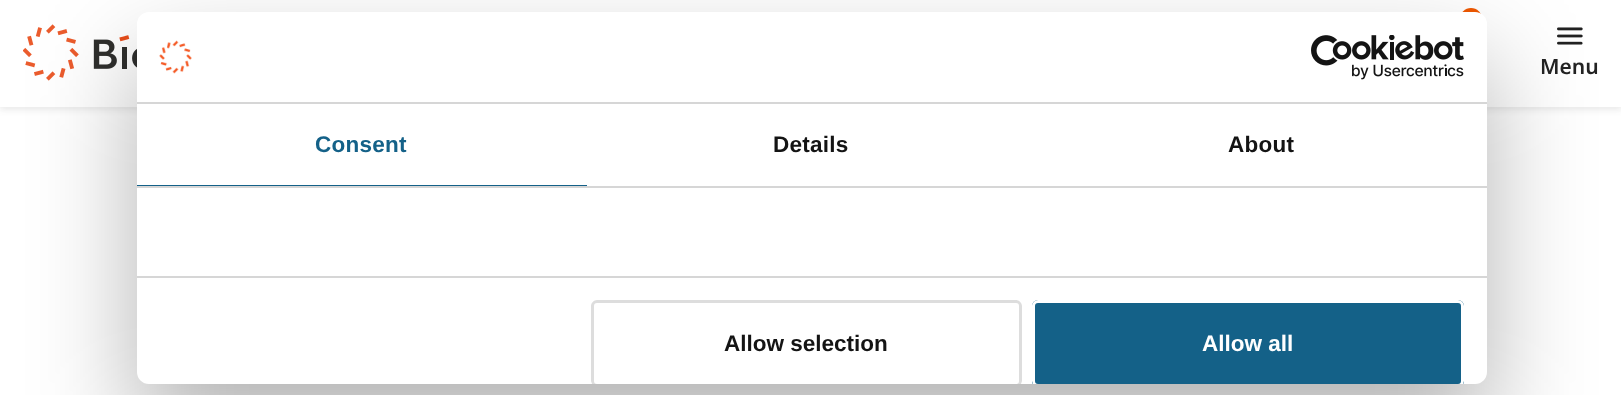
<svg xmlns="http://www.w3.org/2000/svg" width="1621" height="395">
<style>
.a{font:600 21px Noto Sans;fill:#222}
.b{font:bold 22.5px Liberation Sans;letter-spacing:0.25px;fill:#146188}
.c{font:bold 22.5px Liberation Sans;letter-spacing:0.25px;fill:#141414}
.d{font:bold 22.5px Liberation Sans;fill:#141414}
.e{font:bold 22.5px Liberation Sans;fill:#fff}
</style>
<defs>
<clipPath id="clip1"><rect x="137" y="12" width="1350" height="372" rx="12"/></clipPath>
</defs>
<rect width="100%" height="100%" fill="#fff"/>
<path fill="#3031331a" filter="blur(3px)" d="M0 2h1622v108H0z"/>
<path fill="#fff" d="M0 0h1621v107H0z"/>
<image href="1.png" x="23" y="24" width="114" height="57"/>
<circle fill="#f05800" cx="1471" cy="19" r="11"/>
<image href="2.png" x="1557" y="27" width="26" height="18"/>
<rect fill="#0000004d" filter="blur(51px)" x="137" y="60" width="1350" height="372" rx="12"/>
<rect fill="#fff" x="137" y="12" width="1350" height="372" rx="12"/>
<path fill="#d6d6d6" d="M137 102h1350v2H137z"/>
<image href="3.png" x="159" y="40" width="33" height="34"/>
<image href="4.png" x="1311" y="35" width="153" height="45"/>
<path fill="#d6d6d6" d="M137 186h1350v2H137z"/>
<path fill="#146188" d="M137 185h450v1H137z"/>
<path fill="#d6d6d6" d="M137 276h1350v2H137z"/>
<path fill="#ddd" d="M597 300c-3 0-6 3-6 6v75l1 3h5c-2 0-3-1-3-3v-75c0-2 1-3 3-3h419c2 0 3 1 3 3v75c0 2-1 3-3 3h5l1-3v-75c0-3-3-6-6-6z"/>
<g clip-path="url(#clip1)">
<rect fill="#146188" x="1032" y="300" width="432" height="87" rx="6"/>
</g>
<path fill="#fff" d="M1038 300c-3 0-6 3-6 6v75l1 3h5c-2 0-3-1-3-3v-75c0-2 1-3 3-3h420c2 0 3 1 3 3v75c0 2-1 3-3 3h5l1-3v-75c0-3-3-6-6-6z"/>
<text class="a" x="1540" y="74">Menu</text>
<text class="b" x="315" y="152">Consent</text>
<text class="c" x="773" y="152">Details</text>
<text class="c" x="1228" y="152">About</text>
<text class="d" x="724" y="351">Allow selection</text>
<text class="e" x="1202" y="351">Allow all</text>
</svg>
